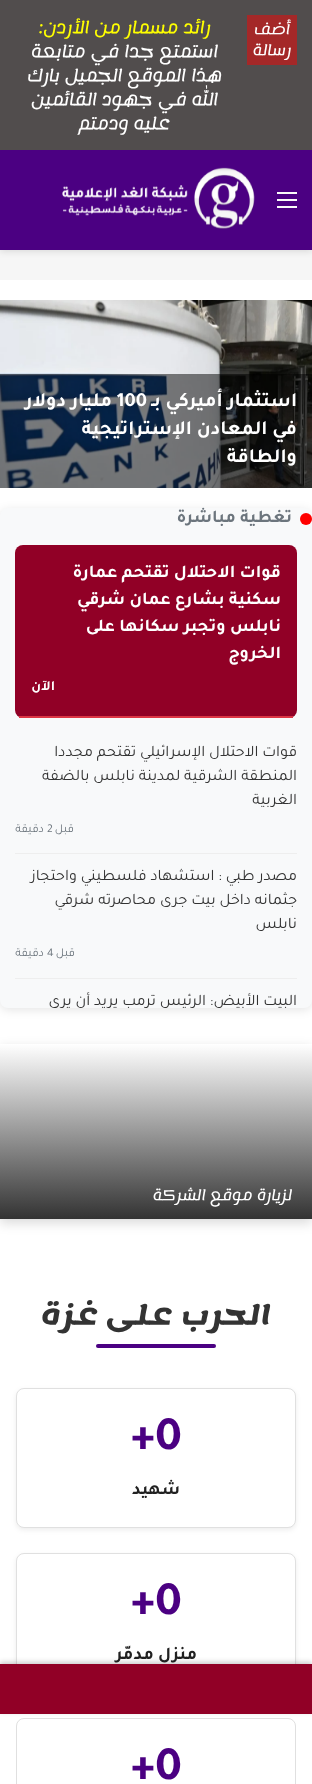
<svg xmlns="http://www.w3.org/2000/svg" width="312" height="1784">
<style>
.a{font:bold 20px Tajawal;direction:rtl;fill:#fff}
.b{font:bold 20px Tajawal;fill:#fff}
.c{font:bold 18px Tajawal;direction:rtl;fill:#6c757d}
.d{font:bold 18px Tajawal;direction:rtl;fill:#fff}
.e{font:bold 14px Tajawal;direction:rtl;fill:#fff}
.f{font:16px Tajawal;direction:rtl;fill:#333}
.g{font:12px Tajawal;direction:rtl;fill:#6c757d}
.h{font:12px Tajawal;fill:#6c757d}
.i{font:14px Lemonada;direction:rtl;fill:#fff}
.j{font:bold 26px Lemonada;direction:rtl;fill:#333}
.k{font:bold 48px Tajawal;fill:#4b0082}
.l{font:bold 18px Tajawal;direction:rtl;fill:#212121}
</style>
<defs>
<linearGradient id="g1" gradientUnits="userSpaceOnUse" x1="156" y1="1219" x2="156" y2="1044"><stop offset="0" stop-color="#333"/><stop offset="1" stop-color="#fff"/></linearGradient>
</defs>
<rect width="100%" height="100%" fill="#fff"/>
<path fill="#f6f6f6" d="M0 250h312v30H0z"/>
<path fill="#0000001a" filter="blur(3px)" d="M0 152h312v100H0z"/>
<image href="1.png" x="0" y="0" width="312" height="150"/>
<path fill="#4b0082" d="M0 150h312v100H0z"/>
<path fill="#fafafa" d="M277 192h20v2H277z"/>
<path fill="#fafafa" d="M277 199h20v2H277z"/>
<path fill="#fafafa" d="M277 206h20v2H277z"/>
<image href="2.png" x="62" y="167" width="193" height="62"/>
<image href="3.png" x="0" y="300" width="312" height="188"/>
<path fill="#00000080" d="M0 374h312v114H0z"/>
<rect fill="#0000001a" filter="blur(5px)" y="510" width="312" height="500" rx="8"/>
<rect fill="#f8f9fa" y="508" width="312" height="500" rx="8"/>
<circle fill="#f00" cx="306" cy="519" r="6"/>
<rect fill="#910026" x="15" y="545" width="282" height="173" rx="8"/>
<path fill="#dc3545" d="M19 716h274v2H19z"/>
<path fill="#eee" d="M15 853h282v1H15z"/>
<path fill="#eee" d="M15 978h282v1H15z"/>
<path fill="#00000026" filter="blur(6px)" d="M0 1048h312v175H0z"/>
<path fill="url(#g1)" d="M0 1044h312v175H0z"/>
<rect fill="#4b0082" x="96" y="1344" width="120" height="4" rx="2"/>
<rect fill="#00000012" filter="blur(2.5px)" x="16" y="1390" width="280" height="140" rx="8"/>
<rect fill="#fff" stroke="#e0e0e0" x="16.5" y="1388.5" width="279" height="139" rx="7.5"/>
<rect fill="#00000012" filter="blur(2.5px)" x="16" y="1555" width="280" height="140" rx="8"/>
<rect fill="#fff" stroke="#e0e0e0" x="16.5" y="1553.5" width="279" height="139" rx="7.5"/>
<rect fill="none" stroke="#e0e0e0" x="16.5" y="1718.5" width="279" height="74" rx="7.5"/>
<path fill="#00000033" filter="blur(2.5px)" d="M0 1662h312v50H0z"/>
<path fill="#910026" d="M0 1664h312v50H0z"/>
<text class="a" x="297" y="406">استثمار أميركي بـ</text>
<text class="b" x="117" y="406">100</text>
<text class="a" x="112" y="406">مليار دولار</text>
<text class="a" x="297" y="434">في المعادن الإستراتيجية</text>
<text class="a" x="297" y="462">والطاقة</text>
<text class="c" x="292" y="522">تغطية مباشرة</text>
<text class="d" x="281" y="577">قوات الاحتلال تقتحم عمارة</text>
<text class="d" x="281" y="604">سكنية بشارع عمان شرقي</text>
<text class="d" x="281" y="631">نابلس وتجبر سكانها على</text>
<text class="d" x="281" y="658">الخروج</text>
<text class="e" x="55" y="690">الآن</text>
<text class="f" x="297" y="756">قوات الاحتلال الإسرائيلي تقتحم مجددا</text>
<text class="f" x="297" y="780">المنطقة الشرقية لمدينة نابلس بالضفة</text>
<text class="f" x="297" y="804">الغربية</text>
<text class="g" x="74" y="832">قبل</text>
<text class="h" x="47" y="832">2</text>
<text class="g" x="44" y="832">دقيقة</text>
<text class="f" x="297" y="880">مصدر طبي : استشهاد فلسطيني واحتجاز</text>
<text class="f" x="297" y="904">جثمانه داخل بيت جرى محاصرته شرقي</text>
<text class="f" x="297" y="928">نابلس</text>
<text class="g" x="75" y="956">قبل</text>
<text class="h" x="47" y="956">4</text>
<text class="g" x="44" y="956">دقيقة</text>
<text class="f" x="297" y="1005">البيت الأبيض: الرئيس ترمب يريد أن يرى</text>
<text class="i" x="292" y="1200">لزيارة موقع الشركة</text>
<text class="j" x="271" y="1324">الحرب على غزة</text>
<text class="k" x="131" y="1449">+0</text>
<text class="l" x="180" y="1494">شهيد</text>
<text class="k" x="131" y="1614">+0</text>
<text class="l" x="197" y="1659">منزل مدمّر</text>
<text class="k" x="131" y="1779">+0</text>
</svg>
